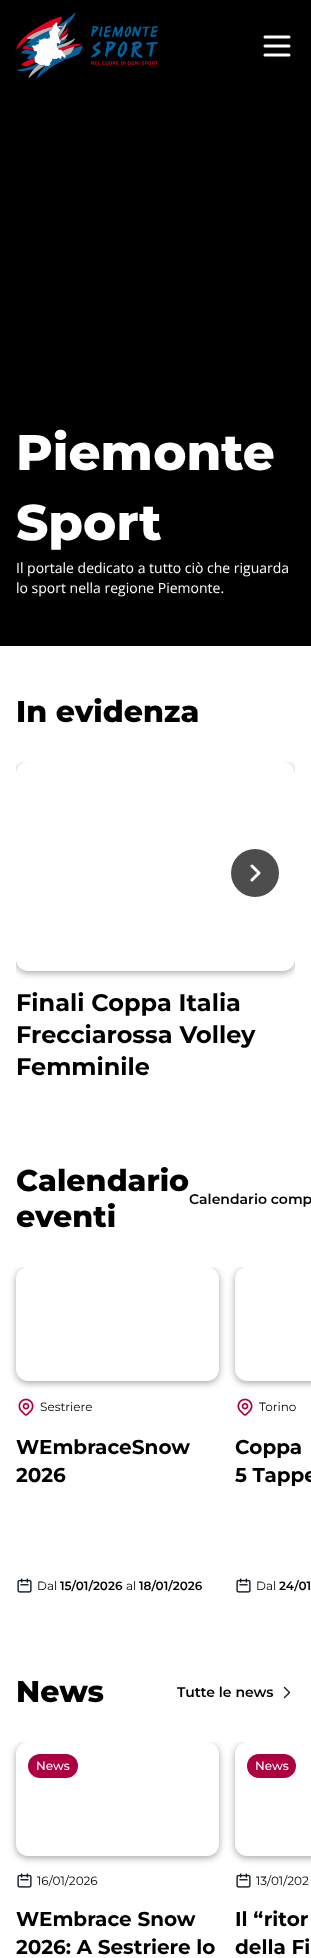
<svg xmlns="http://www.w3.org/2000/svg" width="311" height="1958">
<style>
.a{font:800 50px Montserrat;fill:#fff}
.b{font:14px Open Sans;fill:#fff}
.c{font:800 30px Montserrat;fill:#000}
.d{font:bold 24px Montserrat;fill:#000}
.e{font:600 14px Montserrat;fill:#000}
.f{font:12px Montserrat;fill:#000}
.g{font:bold 20px Montserrat;fill:#000}
.h{font:600 12px Montserrat;fill:#000}
.i{font:500 12px Montserrat;fill:#fff}
</style>
<defs>
<clipPath id="clip1"><path d="M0 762h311v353H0z"/></clipPath>
<clipPath id="clip2"><path d="M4 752h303v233h-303zm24 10h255c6.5 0 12 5.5 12 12v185c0 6.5-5.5 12-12 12h-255c-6.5 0-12-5.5-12-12v-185c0-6.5 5.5-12 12-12z" clip-rule="evenodd"/></clipPath>
<clipPath id="clip3"><path d="M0 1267h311v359H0z"/></clipPath>
<clipPath id="clip4"><path d="M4 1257h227v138h-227zm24 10h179c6.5 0 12 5.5 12 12v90c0 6.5-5.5 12-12 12h-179c-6.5 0-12-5.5-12-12v-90c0-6.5 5.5-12 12-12z" clip-rule="evenodd"/></clipPath>
<clipPath id="clip5"><path d="M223 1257h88v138h-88zm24 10h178c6.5 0 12 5.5 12 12v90c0 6.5-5.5 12-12 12h-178c-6.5 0-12-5.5-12-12v-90c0-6.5 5.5-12 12-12z" clip-rule="evenodd"/></clipPath>
<clipPath id="clip6"><path d="M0 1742h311v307H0z"/></clipPath>
<clipPath id="clip7"><path d="M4 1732h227v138h-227zm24 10h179c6.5 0 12 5.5 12 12v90c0 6.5-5.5 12-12 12h-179c-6.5 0-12-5.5-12-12v-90c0-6.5 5.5-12 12-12z" clip-rule="evenodd"/></clipPath>
<clipPath id="clip8"><path d="M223 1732h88v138h-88zm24 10h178c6.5 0 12 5.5 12 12v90c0 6.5-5.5 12-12 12h-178c-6.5 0-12-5.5-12-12v-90c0-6.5 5.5-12 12-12z" clip-rule="evenodd"/></clipPath>
</defs>
<rect width="100%" height="100%" fill="#fff"/>
<path fill="#000" d="M0 0h311v646H0z"/>
<image href="1.png" x="16" y="12" width="142" height="67"/>
<path fill="none" stroke="#fff" stroke-width="3" stroke-linecap="round" stroke-linejoin="round" d="M265 37h24m-24 9h24m-24 9h24"/>
<g clip-path="url(#clip1)">
<g clip-path="url(#clip2)">
<rect fill="#00000059" filter="blur(3.5px)" x="16" y="764" width="279" height="209" rx="12"/>
</g>
</g>
<path fill="#fff" d="M9 763h7v211H9z"/>
<circle fill="#4d4d4d" cx="255" cy="873" r="24"/>
<path fill="none" stroke="#fff" stroke-width="3" stroke-linecap="round" stroke-linejoin="round" d="M252 866l7 7l-7 7"/>
<path fill="#fff" d="M295 763h7v211H295z"/>
<g clip-path="url(#clip3)">
<g clip-path="url(#clip4)">
<rect fill="#00000059" filter="blur(3.5px)" x="16" y="1269" width="203" height="114" rx="12"/>
</g>
</g>
<image href="2.png" x="18" y="1398" width="16" height="18"/>
<image href="3.png" x="17" y="1578" width="15" height="15"/>
<g clip-path="url(#clip3)">
<g clip-path="url(#clip5)">
<rect fill="#00000059" filter="blur(3.5px)" x="235" y="1269" width="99" height="114" rx="12"/>
</g>
</g>
<image href="2.png" x="237" y="1398" width="16" height="18"/>
<image href="3.png" x="236" y="1578" width="15" height="15"/>
<path fill="none" stroke="#111827" stroke-width="1.4" stroke-linecap="round" stroke-linejoin="round" d="M284.5 1687.5l5 5l-5 5"/>
<g clip-path="url(#clip6)">
<g clip-path="url(#clip7)">
<rect fill="#00000059" filter="blur(3.5px)" x="16" y="1744" width="203" height="114" rx="12"/>
</g>
</g>
<rect fill="#ac0042" x="28" y="1754" width="50" height="24" rx="12"/>
<image href="3.png" x="17" y="1873" width="15" height="15"/>
<g clip-path="url(#clip6)">
<g clip-path="url(#clip8)">
<rect fill="#00000059" filter="blur(3.5px)" x="235" y="1744" width="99" height="114" rx="12"/>
</g>
</g>
<rect fill="#ac0042" x="247" y="1754" width="49" height="24" rx="12"/>
<image href="3.png" x="236" y="1873" width="15" height="15"/>
<text class="a" x="16" y="470">Piemonte</text>
<text class="a" x="16" y="540">Sport</text>
<text class="b" x="16" y="573">Il portale dedicato a tutto ciò che riguarda</text>
<text class="b" x="16" y="593">lo sport nella regione Piemonte.</text>
<text class="c" x="16" y="722">In evidenza</text>
<text class="d" x="16" y="1011">Finali Coppa Italia</text>
<text class="d" x="16" y="1043">Frecciarossa Volley</text>
<text class="d" x="16" y="1075">Femminile</text>
<text class="c" x="16" y="1191">Calendario</text>
<text class="c" x="16" y="1227">eventi</text>
<text class="e" x="189" y="1204">Calendario comp</text>
<text class="f" x="40" y="1411">Sestriere</text>
<text class="g" x="16" y="1454">WEmbraceSnow</text>
<text class="g" x="16" y="1482">2026</text>
<text class="f" x="37" y="1590">Dal</text>
<text class="h" x="60" y="1590">15/01/2026</text>
<text class="f" x="126" y="1590">al</text>
<text class="h" x="139" y="1590">18/01/2026</text>
<text class="f" x="259" y="1411">Torino</text>
<text class="g" x="235" y="1454">Coppa</text>
<text class="g" x="235" y="1482">5 Tappe</text>
<text class="f" x="256" y="1590">Dal</text>
<text class="h" x="279" y="1590">24/01</text>
<text class="c" x="16" y="1702">News</text>
<text class="e" x="177" y="1697">Tutte le news</text>
<text class="i" x="36" y="1770">News</text>
<text class="f" x="37" y="1885">16/01/2026</text>
<text class="g" x="16" y="1926">WEmbrace Snow</text>
<text class="g" x="16" y="1954">2026: A Sestriere lo</text>
<text class="i" x="255" y="1770">News</text>
<text class="f" x="256" y="1885">13/01/202</text>
<text class="g" x="235" y="1926">Il “ritor</text>
<text class="g" x="235" y="1954">della Fi</text>
</svg>
